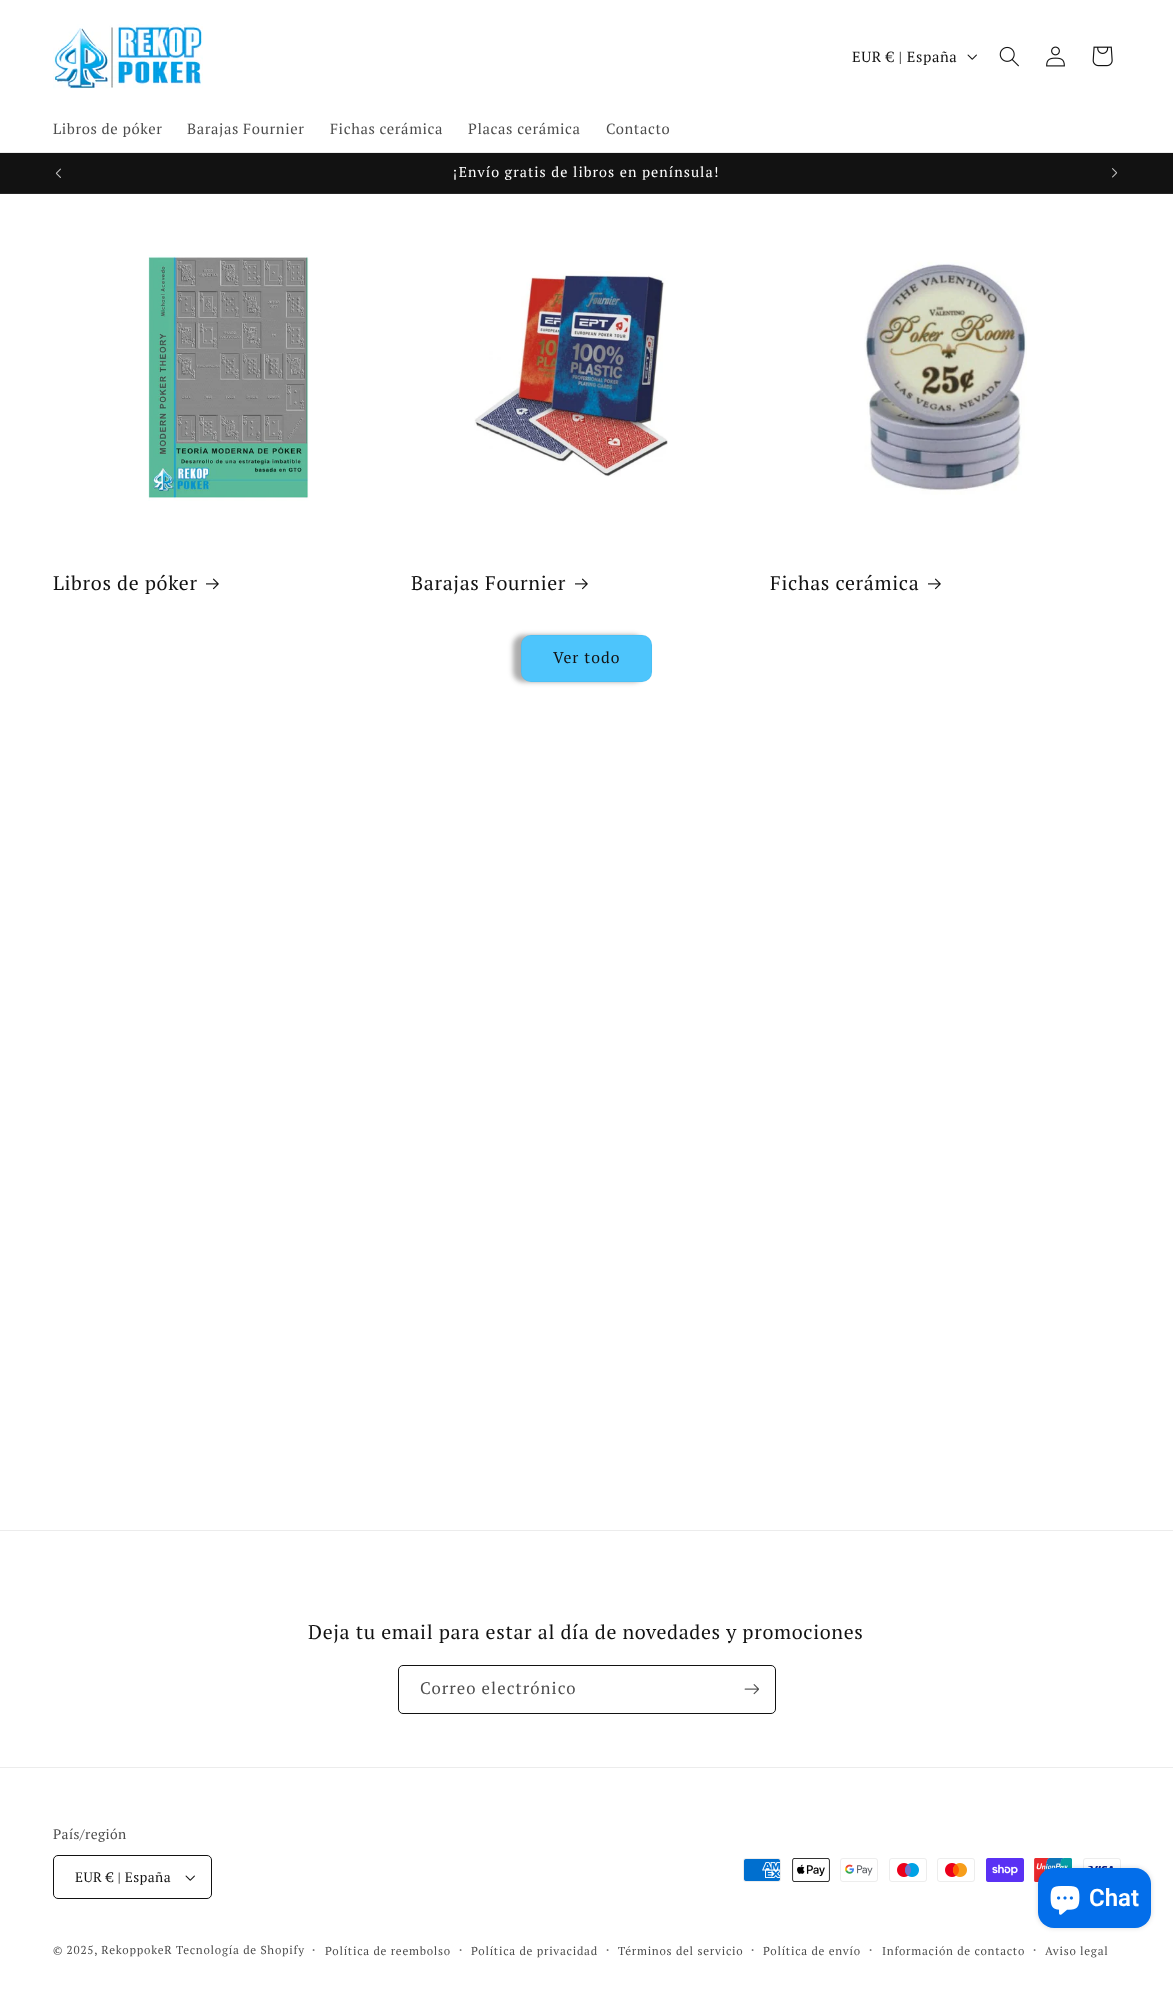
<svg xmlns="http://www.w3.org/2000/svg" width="1173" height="2013">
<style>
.a{font:14.75px PT Serif;letter-spacing:0.6px;fill:#121212}
.b{font:14.75px PT Serif;letter-spacing:0.6px;fill:#4d4d4d}
.c{font:14.25px PT Serif;letter-spacing:1.05px;fill:#fff}
.d{font:19.8px PT Serif;letter-spacing:0.65px;fill:#121212}
.e{font:15.75px PT Serif;letter-spacing:1.05px;fill:#121212}
.f{font:16.75px PT Serif;letter-spacing:1.05px;fill:#4d4d4d}
.g{font:13.75px PT Serif;letter-spacing:0.4px;fill:#4d4d4d}
.h{font:13.75px PT Serif;letter-spacing:0.4px;fill:#121212}
.i{font:11.55px PT Serif;letter-spacing:0.75px;fill:#4d4d4d}
.j{font:13px PT Serif;letter-spacing:0.75px;fill:#4d4d4d}
.k{font:600 24px Roboto;fill:#fff}
</style>
<rect width="100%" height="100%" fill="#fff"/>
<path fill="#ececec" d="M0 152h1173v1H0z"/>
<image href="1.png" x="53" y="24" width="150" height="65"/>
<image href="2.png" x="967" y="54" width="10" height="6"/>
<image href="3.png" x="999" y="46" width="20" height="21"/>
<image href="4.png" x="1046" y="46" width="19" height="21"/>
<image href="5.png" x="1092" y="46" width="21" height="21"/>
<path fill="#121212" d="M0 153h1173v40H0z"/>
<path fill="#252525" d="M0 193h1173v1H0z"/>
<image href="6.png" x="55" y="168" width="6" height="10"/>
<image href="7.png" x="1112" y="168" width="6" height="10"/>
<image href="8.png" x="148" y="255" width="161" height="246"/>
<image href="9.png" x="206" y="578" width="13" height="12"/>
<image href="10.png" x="474" y="271" width="194" height="206"/>
<image href="9.png" x="575" y="578" width="13" height="12"/>
<image href="11.png" x="864" y="260" width="163" height="235"/>
<image href="9.png" x="928" y="578" width="13" height="12"/>
<rect fill="#12121259" filter="blur(2.5px)" x="513" y="635" width="131" height="47" rx="10"/>
<rect fill="#4dc5fc" x="521" y="635" width="131" height="47" rx="10"/>
<rect fill="none" stroke="#12121226" stroke-width="0.3" x="521.15" y="635.15" width="130.7" height="46.7" rx="9.85"/>
<path fill="#ececec" d="M0 1530h1173v1H0z"/>
<rect fill="none" stroke="#121212" x="398.5" y="1665.5" width="377" height="48" rx="4.5"/>
<image href="12.png" x="744" y="1684" width="15" height="11"/>
<path fill="#ececec" d="M0 1767h1173v1H0z"/>
<image href="2.png" x="185" y="1875" width="10" height="6"/>
<rect fill="none" stroke="#121212" x="53.5" y="1855.5" width="158" height="43" rx="4.5"/>
<image href="13.png" x="743" y="1858" width="38" height="24"/>
<image href="14.png" x="792" y="1858" width="38" height="24"/>
<image href="15.png" x="840" y="1858" width="38" height="24"/>
<image href="16.png" x="889" y="1858" width="38" height="24"/>
<image href="17.png" x="937" y="1858" width="38" height="24"/>
<image href="18.png" x="986" y="1858" width="38" height="24"/>
<image href="19.png" x="1034" y="1858" width="38" height="24"/>
<image href="20.png" x="1083" y="1858" width="38" height="10"/>
<rect fill="#00000026" filter="blur(2.5px)" x="1038" y="1868" width="113" height="60" rx="16"/>
<rect fill="#036eea" x="1038" y="1868" width="113" height="60" rx="16"/>
<image href="21.png" x="1050" y="1886" width="30" height="29"/>
<text class="a" x="852" y="62">EUR € | España</text>
<text class="b" x="53" y="134">Libros de póker</text>
<text class="b" x="187" y="134">Barajas Fournier</text>
<text class="b" x="330" y="134">Fichas cerámica</text>
<text class="b" x="468" y="134">Placas cerámica</text>
<text class="b" x="606" y="134">Contacto</text>
<text class="c" x="453" y="177">¡Envío gratis de libros en península!</text>
<text class="d" x="53" y="590">Libros de póker</text>
<text class="d" x="411" y="590">Barajas Fournier</text>
<text class="d" x="770" y="590">Fichas cerámica</text>
<text class="e" x="553" y="663">Ver todo</text>
<text class="d" x="308" y="1639">Deja tu email para estar al día de novedades y promociones</text>
<text class="f" x="420" y="1694">Correo electrónico</text>
<text class="g" x="53" y="1839">País/región</text>
<text class="h" x="75" y="1882">EUR € | España</text>
<text class="i" x="53" y="1954">© 2025, RekoppokeR Tecnología de Shopify</text>
<text class="j" x="312" y="1954">·</text>
<text class="i" x="325" y="1955">Política de reembolso</text>
<text class="j" x="459" y="1954">·</text>
<text class="i" x="471" y="1955">Política de privacidad</text>
<text class="j" x="606" y="1954">·</text>
<text class="i" x="618" y="1955">Términos del servicio</text>
<text class="j" x="751" y="1954">·</text>
<text class="i" x="763" y="1955">Política de envío</text>
<text class="j" x="869" y="1954">·</text>
<text class="i" x="882" y="1955">Información de contacto</text>
<text class="j" x="1033" y="1954">·</text>
<text class="i" x="1045" y="1955">Aviso legal</text>
<text class="k" x="1089" y="1906">Chat</text>
</svg>
